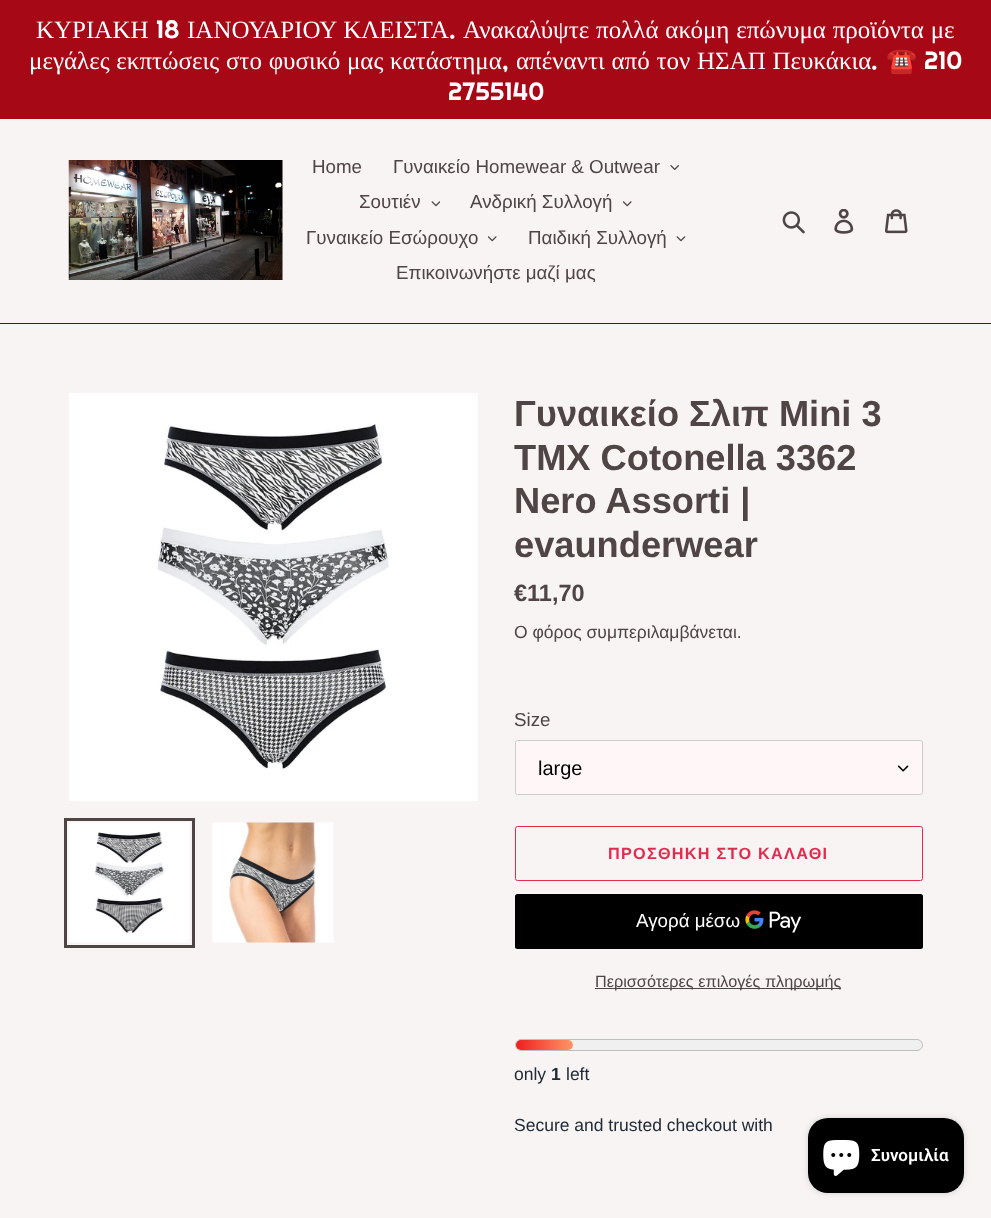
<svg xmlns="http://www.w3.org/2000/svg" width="991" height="1218">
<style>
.a{font:25px Liberation Serif;fill:#fff}
.b{font:25px Righteous;fill:#fff}
.c{font:25px Noto Color Emoji;fill:#fff}
.d{font:18.75px Liberation Sans;fill:#4f4545}
.e{font:bold 36.25px Liberation Sans;fill:#4f4545}
.f{font:bold 23.5px Liberation Sans;fill:#4f4545}
.g{font:17.5px Liberation Sans;fill:#4f4545}
.h{font:20px Liberation Sans;fill:#000}
.i{font:bold 16.25px Liberation Sans;letter-spacing:1.25px;fill:#e32b4f}
.j{font:18.75px Liberation Sans;fill:#fff}
.k{font:16.25px Liberation Sans;fill:#4f4545}
.l{font:17.5px Liberation Sans;fill:#212b35}
.m{font:bold 17.5px Liberation Sans;fill:#212b35}
.n{font:600 17px Roboto;fill:#fff}
</style>
<defs>
<linearGradient id="g1" gradientUnits="userSpaceOnUse" x1="516" y1="1045" x2="573" y2="1045"><stop offset="0" stop-color="#ed1f20"/><stop offset="1" stop-color="#ff9766"/></linearGradient>
</defs>
<rect width="100%" height="100%" fill="#f8f4f4"/>
<path fill="#a70816" d="M0 0h991v119H0z"/>
<path fill="#491919" d="M0 323h991v1H0z"/>
<image href="1.png" x="68" y="160" width="215" height="120"/>
<image href="2.png" x="670" y="165" width="9" height="5"/>
<image href="3.png" x="431" y="201" width="9" height="6"/>
<image href="4.png" x="623" y="201" width="9" height="6"/>
<image href="4.png" x="488" y="236" width="9" height="6"/>
<image href="5.png" x="676" y="236" width="10" height="6"/>
<image href="6.png" x="782" y="211" width="23" height="23"/>
<image href="7.png" x="834" y="209" width="20" height="25"/>
<image href="8.png" x="885" y="209" width="23" height="25"/>
<image href="9.png" x="69" y="393" width="409" height="408"/>
<path fill="none" stroke="#4f4545" stroke-width="3" d="M65.5 819.5h128v127H65.5z"/>
<image href="10.png" x="68" y="822" width="122" height="121"/>
<image href="11.png" x="212" y="822" width="122" height="121"/>
<rect fill="#fff7f7" x="515" y="740" width="408" height="55" rx="2.5"/>
<image href="12.png" x="898" y="765" width="11" height="7"/>
<rect fill="none" stroke="#ccc" x="515.5" y="740.5" width="407" height="54" rx="2"/>
<rect fill="none" stroke="#e32b4f" x="515.5" y="826.5" width="407" height="54" rx="2"/>
<rect fill="#000" x="515" y="894" width="408" height="55" rx="2.5"/>
<image href="13.png" x="745" y="910" width="56" height="23"/>
<path fill="#4f4545" d="M595 988h246v1H595z"/>
<rect fill="#f0f0f0" stroke="#bfbfbf" x="515.5" y="1039.5" width="407" height="11" rx="5.5"/>
<rect fill="url(#g1)" x="516" y="1040" width="57" height="10" rx="5"/>
<rect fill="#00000026" filter="blur(3px)" x="808" y="1118" width="156" height="75" rx="20"/>
<rect fill="#000" x="808" y="1118" width="156" height="75" rx="20"/>
<image href="14.png" x="823" y="1140" width="37" height="36"/>
<text class="a" x="36" y="38">ΚΥΡΙΑΚΗ</text>
<text class="b" x="156" y="38">18</text>
<text class="a" x="187" y="38" word-spacing="0.5">ΙΑΝΟΥΑΡΙΟΥ ΚΛΕΙΣΤΑ</text>
<text class="b" x="449" y="38">.</text>
<text class="a" x="463" y="38" word-spacing="0.5">Ανακαλύψτε πολλά ακόμη επώνυμα προϊόντα με</text>
<text class="a" x="29" y="69" word-spacing="0.5">μεγάλες εκπτώσεις στο φυσικό μας κατάστημα</text>
<text class="b" x="502" y="69">,</text>
<text class="a" x="516" y="69" word-spacing="0.5">απέναντι από τον ΗΣΑΠ Πευκάκια</text>
<text class="b" x="871" y="69">.</text>
<text class="c" x="886" y="69">☎️</text>
<text class="b" x="924" y="69">210</text>
<text class="b" x="448" y="100">2755140</text>
<text class="d" x="312" y="173">Home</text>
<text class="d" x="393" y="173">Γυναικείο Homewear &amp; Outwear</text>
<text class="d" x="359" y="208">Σουτιέν</text>
<text class="d" x="470" y="208">Ανδρική Συλλογή</text>
<text class="d" x="306" y="244">Γυναικείο Εσώρουχο</text>
<text class="d" x="528" y="244">Παιδική Συλλογή</text>
<text class="d" x="396" y="279">Επικοινωνήστε μαζί μας</text>
<text class="e" x="514" y="426">Γυναικείο Σλιπ Mini 3</text>
<text class="e" x="514" y="470">ΤΜΧ Cotonella 3362</text>
<text class="e" x="514" y="513">Nero Assorti |</text>
<text class="e" x="514" y="557">evaunderwear</text>
<text class="f" x="514" y="601">€11,70</text>
<text class="g" x="514" y="638">Ο φόρος συμπεριλαμβάνεται.</text>
<text class="d" x="514" y="726">Size</text>
<text class="h" x="538" y="775">large</text>
<text class="i" x="608" y="859">ΠΡΟΣΘΗΚΗ ΣΤΟ ΚΑΛΑΘΙ</text>
<text class="j" x="636" y="927">Αγορά μέσω</text>
<text class="k" x="595" y="987">Περισσότερες επιλογές πληρωμής</text>
<text class="l" x="514" y="1080">only</text>
<text class="m" x="551" y="1080">1</text>
<text class="l" x="566" y="1080">left</text>
<text class="l" x="514" y="1131">Secure and trusted checkout with</text>
<text class="n" x="871" y="1161">Συνομιλία</text>
</svg>
